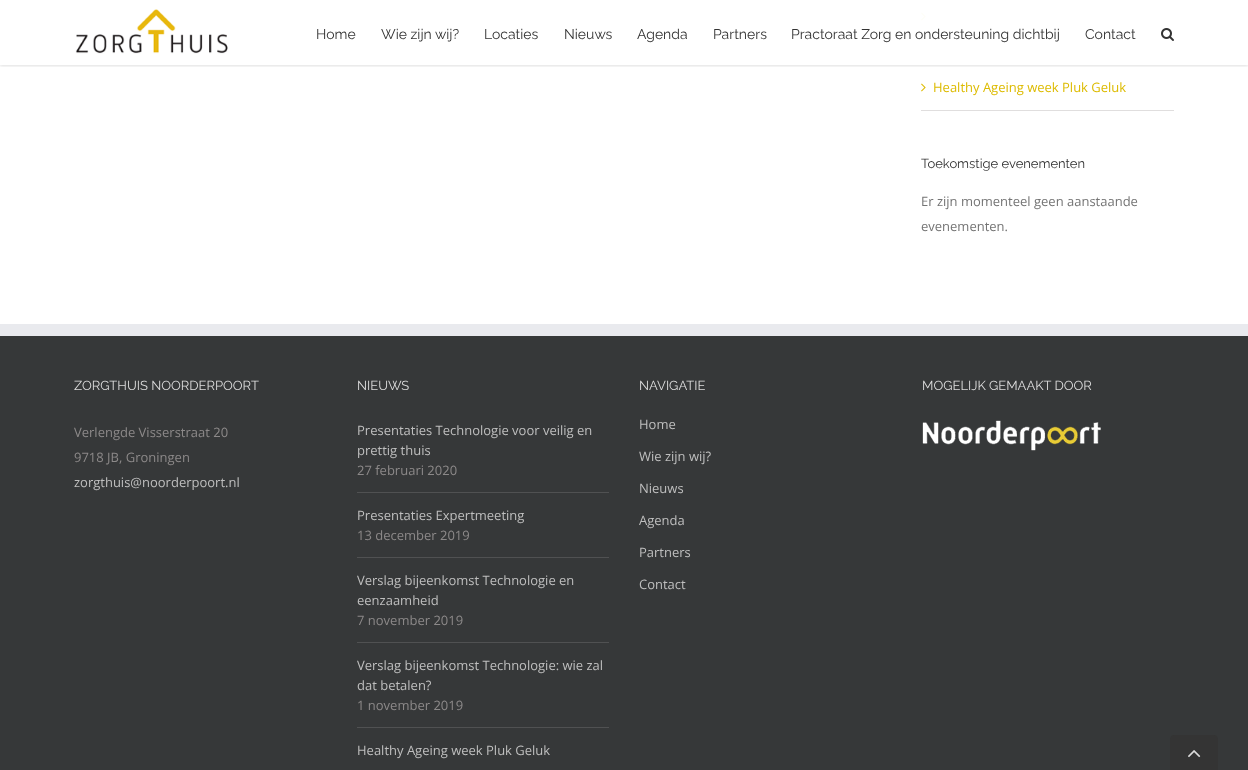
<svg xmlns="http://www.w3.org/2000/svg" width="1248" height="770">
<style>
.a{font:14px Raleway;fill:#333}
.b{font:13px Open Sans;fill:#ddbb01}
.c{font:13px Raleway;fill:#333}
.d{font:13px Open Sans;fill:#747474}
.e{font:13px Raleway;fill:#ddd}
.f{font:13px Open Sans;fill:#8c8989}
.g{font:13px Open Sans;fill:#bfbfbf}
</style>
<defs>
<clipPath id="clip1"><path d="M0 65h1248v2H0z"/></clipPath>
</defs>
<rect width="100%" height="100%" fill="#fff"/>
<image href="3.png" x="921" y="12" width="5" height="9"/>
<g clip-path="url(#clip1)">
<path fill="#0000001f" filter="blur(1.5px)" d="M0 1h1248v65H0z"/>
</g>
<image href="1.png" x="75" y="9" width="153" height="45"/>
<image href="2.png" x="1161" y="28" width="13" height="13"/>
<path fill="#e0dede" d="M921 110h253v1H921z"/>
<image href="4.png" x="921" y="83" width="5" height="9"/>
<path fill="#363839" d="M0 336h1248v434H0z"/>
<path fill="#e9eaee" d="M0 324h1248v12H0z"/>
<path fill="#505152" d="M357 492h252v1H357z"/>
<path fill="#505152" d="M357 557h252v1H357z"/>
<path fill="#505152" d="M357 642h252v1H357z"/>
<path fill="#505152" d="M357 727h252v1H357z"/>
<image href="5.png" x="922" y="420" width="179" height="31"/>
<path fill="#343434" d="M1174 735h40c2 0 4 2 4 4v31h-48v-31c0-2 2-4 4-4z"/>
<image href="6.png" x="1188" y="750" width="13" height="8"/>
<text class="a" x="316" y="39">Home</text>
<text class="a" x="381" y="39">Wie zijn wij?</text>
<text class="a" x="484" y="39">Locaties</text>
<text class="a" x="564" y="39">Nieuws</text>
<text class="a" x="637" y="39">Agenda</text>
<text class="a" x="713" y="39">Partners</text>
<text class="a" x="791" y="39">Practoraat Zorg en ondersteuning dichtbij</text>
<text class="a" x="1085" y="39">Contact</text>
<text class="b" x="933" y="92">Healthy Ageing week Pluk Geluk</text>
<text class="c" x="921" y="168">Toekomstige evenementen</text>
<text class="d" x="921" y="206">Er zijn momenteel geen aanstaande</text>
<text class="d" x="921" y="231">evenementen.</text>
<text class="e" x="74" y="390">ZORGTHUIS NOORDERPOORT</text>
<text class="f" x="74" y="437">Verlengde Visserstraat 20</text>
<text class="f" x="74" y="462">9718 JB, Groningen</text>
<text class="g" x="74" y="487">zorgthuis@noorderpoort.nl</text>
<text class="e" x="357" y="390">NIEUWS</text>
<text class="g" x="357" y="435">Presentaties Technologie voor veilig en</text>
<text class="g" x="357" y="455">prettig thuis</text>
<text class="f" x="357" y="475">27 februari 2020</text>
<text class="g" x="357" y="520">Presentaties Expertmeeting</text>
<text class="f" x="357" y="540">13 december 2019</text>
<text class="g" x="357" y="585">Verslag bijeenkomst Technologie en</text>
<text class="g" x="357" y="605">eenzaamheid</text>
<text class="f" x="357" y="625">7 november 2019</text>
<text class="g" x="357" y="670">Verslag bijeenkomst Technologie: wie zal</text>
<text class="g" x="357" y="690">dat betalen?</text>
<text class="f" x="357" y="710">1 november 2019</text>
<text class="g" x="357" y="755">Healthy Ageing week Pluk Geluk</text>
<text class="e" x="639" y="390">NAVIGATIE</text>
<text class="g" x="639" y="429">Home</text>
<text class="g" x="639" y="461">Wie zijn wij?</text>
<text class="g" x="639" y="493">Nieuws</text>
<text class="g" x="639" y="525">Agenda</text>
<text class="g" x="639" y="557">Partners</text>
<text class="g" x="639" y="589">Contact</text>
<text class="e" x="922" y="390">MOGELIJK GEMAAKT DOOR</text>
</svg>
